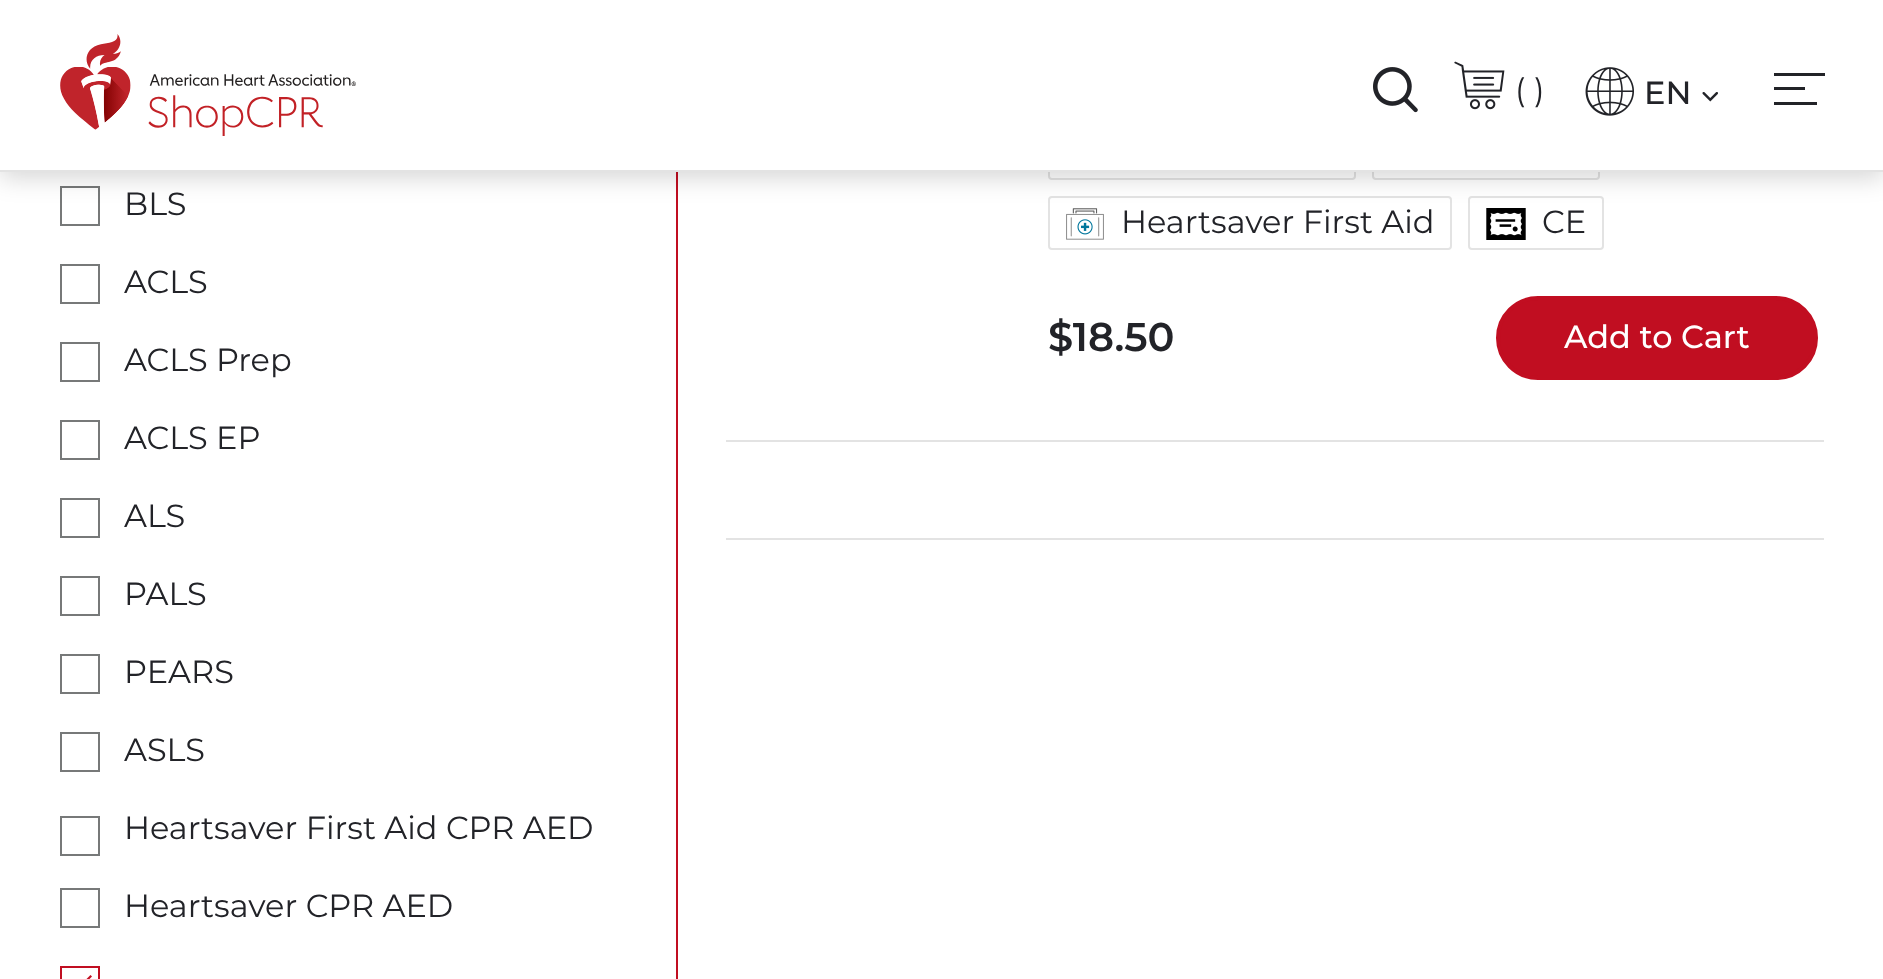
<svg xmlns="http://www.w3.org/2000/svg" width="1883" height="979">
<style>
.a{font:32px Montserrat;fill:#222328}
.b{font:500 32px Montserrat;fill:#222328}
.c{font:600 40px Montserrat;fill:#222328}
.d{font:500 32px Montserrat;fill:#fff}
</style>
<rect width="100%" height="100%" fill="#fff"/>
<path fill="#c10e21" d="M676 172h2v807H676z"/>
<path fill="none" stroke="#777979" stroke-width="2" d="M61 187h38v38H61z"/>
<rect fill="none" stroke="#e3e3e3" stroke-width="2" x="1049" y="129" width="306" height="50" rx="3"/>
<rect fill="none" stroke="#e3e3e3" stroke-width="2" x="1373" y="129" width="226" height="50" rx="3"/>
<rect fill="none" stroke="#e3e3e3" stroke-width="2" x="1049" y="197" width="402" height="52" rx="3"/>
<image href="6.png" x="1066" y="208" width="38" height="32"/>
<rect fill="none" stroke="#e3e3e3" stroke-width="2" x="1469" y="197" width="134" height="52" rx="3"/>
<image href="7.png" x="1486" y="208" width="40" height="32"/>
<path fill="#00000029" filter="blur(12px)" d="M0 6h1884v172H0z"/>
<path fill="#fff" d="M0 0h1883v170H0z"/>
<path fill="#e3e3e3" d="M0 170h1883v2H0z"/>
<image href="1.png" x="60" y="34" width="296" height="102"/>
<image href="2.png" x="1373" y="67" width="45" height="46"/>
<image href="3.png" x="1454" y="61" width="51" height="49"/>
<image href="4.png" x="1585" y="67" width="49" height="49"/>
<image href="5.png" x="1702" y="92" width="16" height="10"/>
<path fill="#222328" d="M1825 73v3h-51v-3zm-20 14h-31v3h31zm-31 18h43v-3h-43z"/>
<path fill="none" stroke="#777979" stroke-width="2" d="M61 265h38v38H61z"/>
<path fill="none" stroke="#777979" stroke-width="2" d="M61 343h38v38H61z"/>
<path fill="none" stroke="#777979" stroke-width="2" d="M61 421h38v38H61z"/>
<path fill="none" stroke="#777979" stroke-width="2" d="M61 499h38v38H61z"/>
<path fill="none" stroke="#777979" stroke-width="2" d="M61 577h38v38H61z"/>
<path fill="none" stroke="#777979" stroke-width="2" d="M61 655h38v38H61z"/>
<path fill="none" stroke="#777979" stroke-width="2" d="M61 733h38v38H61z"/>
<path fill="none" stroke="#777979" stroke-width="2" d="M61 817h38v38H61z"/>
<path fill="none" stroke="#777979" stroke-width="2" d="M61 889h38v38H61z"/>
<path fill="none" stroke="#c10e21" stroke-width="2" d="M61 967h38v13H61z"/>
<path fill="#c10e21" d="M90.5 975l1.5 1.5l-17 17l-1.5-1.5z"/>
<path fill="#e3e3e3" d="M726 440h1098v2H726z"/>
<rect fill="#c10e21" stroke="#c10e21" stroke-width="4" x="1498" y="298" width="318" height="80" rx="40"/>
<path fill="#e3e3e3" d="M726 538h1098v2H726z"/>
<text class="a" x="1515" y="101">( )</text>
<text class="b" x="1644" y="104">EN</text>
<text class="a" x="124" y="215">BLS</text>
<text class="a" x="124" y="293">ACLS</text>
<text class="a" x="124" y="371">ACLS Prep</text>
<text class="a" x="124" y="449">ACLS EP</text>
<text class="a" x="124" y="527">ALS</text>
<text class="a" x="124" y="605">PALS</text>
<text class="a" x="124" y="683">PEARS</text>
<text class="a" x="124" y="761">ASLS</text>
<text class="a" x="124" y="839">Heartsaver First Aid CPR AED</text>
<text class="a" x="124" y="917">Heartsaver CPR AED</text>
<text class="a" x="1121" y="233">Heartsaver First Aid</text>
<text class="a" x="1542" y="233">CE</text>
<text class="c" x="1048" y="351">$18.50</text>
<text class="d" x="1564" y="348">Add to Cart</text>
</svg>
